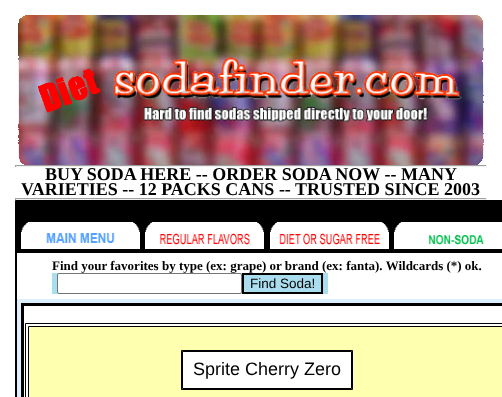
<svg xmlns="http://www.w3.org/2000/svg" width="502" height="397">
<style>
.a{font:bold 18px Liberation Serif;fill:#000}
.b{font:bold 13px Liberation Serif;fill:#000}
.c{font:13.5px Liberation Sans;fill:#000}
.d{font:18px Liberation Sans;fill:#000}
</style>
<rect width="100%" height="100%" fill="#fff"/>
<image href="1.png" x="18" y="15" width="466" height="150"/>
<image href="2.png" x="15" y="15" width="10" height="150"/>
<image href="3.png" x="38" y="68" width="63" height="45"/>
<image href="4.png" x="113" y="57" width="349" height="66"/>
<image href="5.png" x="478" y="15" width="9" height="150"/>
<path fill="#9f9f9f" d="M15 165h472v1H15z"/>
<path fill="#eee" d="M486 165h1v2H486z"/>
<path fill="#eee" d="M15 166h472v1H15z"/>
<path fill="#9f9f9f" d="M15 165h1v2H15z"/>
<path fill="#9f9f9f" d="M15 198h472v1H15z"/>
<path fill="#eee" d="M486 198h1v2H486z"/>
<path fill="#eee" d="M15 199h472v1H15z"/>
<path fill="#9f9f9f" d="M15 198h1v2H15z"/>
<path fill="none" stroke="#000" d="M15.5 200.5h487v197H15.5z"/>
<path fill="#000" d="M16 201h486v196H16z"/>
<image href="6.png" x="21" y="222" width="119" height="27"/>
<image href="7.png" x="145" y="222" width="119" height="27"/>
<image href="8.png" x="270" y="222" width="119" height="27"/>
<image href="9.png" x="394" y="222" width="108" height="27"/>
<path fill="#fff" d="M17 253h485v46H17z"/>
<path fill="#ade" d="M52 273h276v21H52z"/>
<rect fill="#fff" stroke="#767676" x="57.5" y="273.5" width="184" height="20" rx="1.5"/>
<path fill="none" stroke="#000" stroke-width="2" d="M243 274h79v19H243z"/>
<path fill="#def" d="M17 299h485v98H17z"/>
<path fill="#000" d="M21 303h481v94H21z"/>
<path fill="#fff" d="M24 306h478v91H24z"/>
<path fill="none" stroke="#000" d="M25.5 323.5h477v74H25.5z"/>
<path fill="#ffffb0" stroke="#000" d="M28.5 326.5h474v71H28.5z"/>
<path fill="none" stroke="#000" d="M181.5 350.5h171v39H181.5z"/>
<path fill="#fff" stroke="#000" d="M182.5 351.5h169v37H182.5z"/>
<text class="a" x="45" y="180">BUY SODA HERE -- ORDER SODA NOW -- MANY</text>
<text class="a" x="21" y="195">VARIETIES -- 12 PACKS CANS -- TRUSTED SINCE 2003</text>
<text class="b" x="52" y="270">Find your favorites by type (ex: grape) or brand (ex: fanta). Wildcards (*) ok.</text>
<text class="c" x="250" y="288">Find Soda!</text>
<text class="d" x="193" y="375">Sprite Cherry Zero</text>
</svg>
